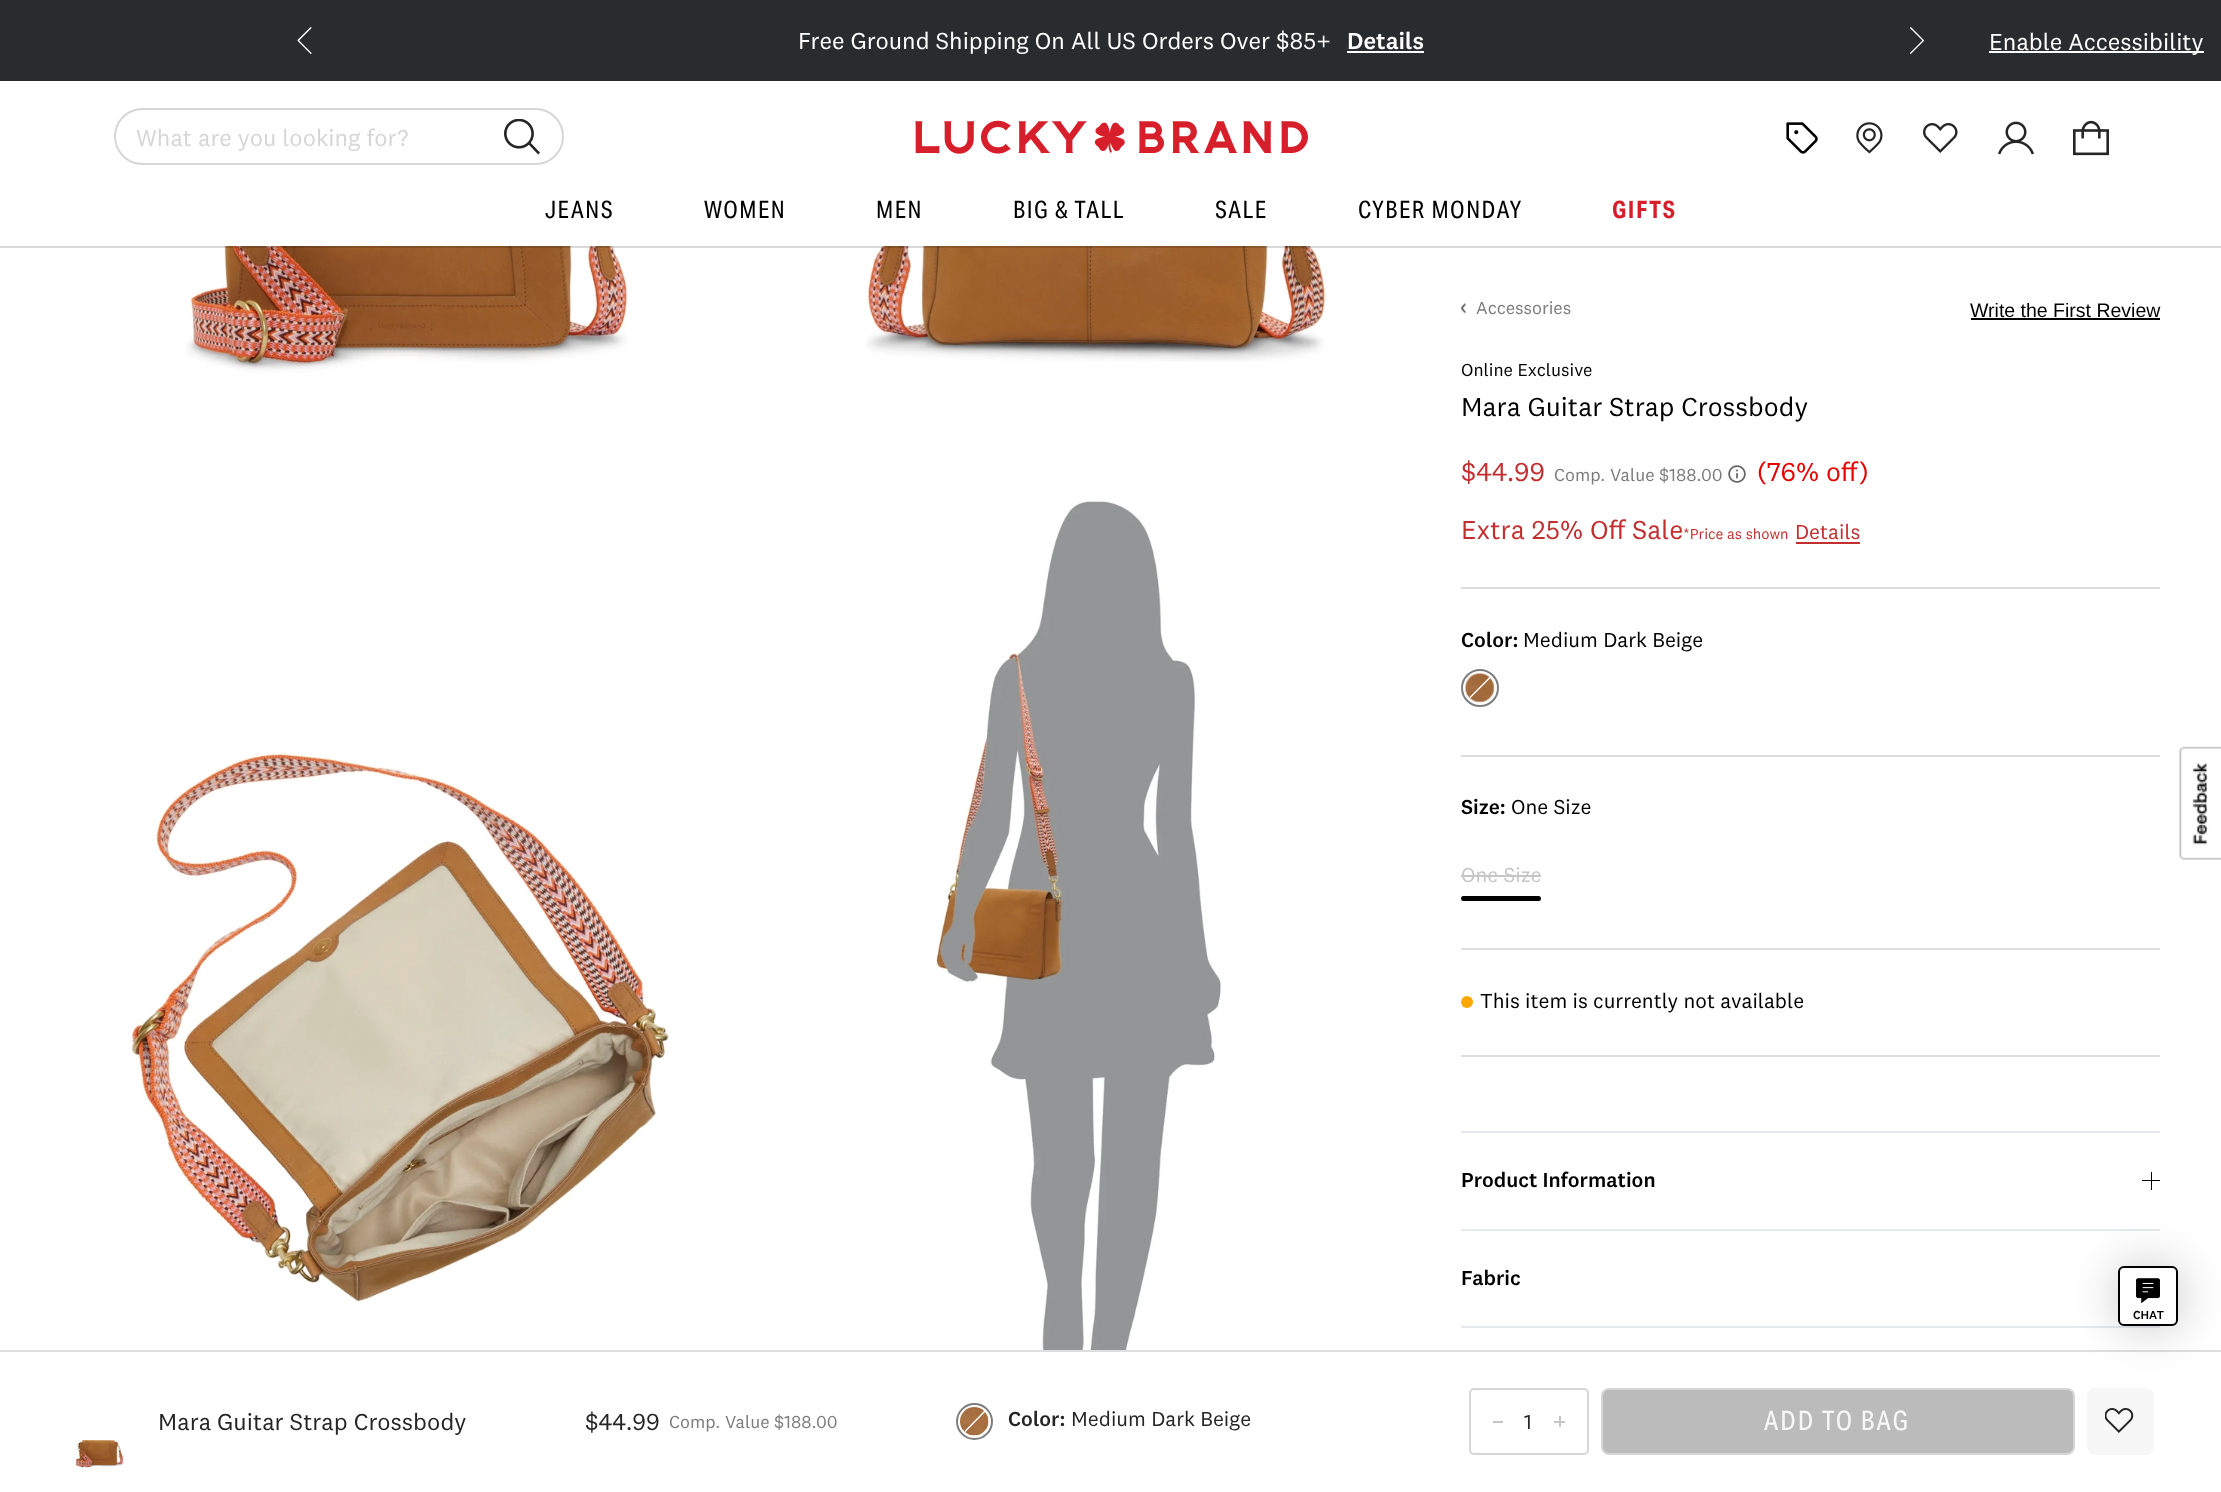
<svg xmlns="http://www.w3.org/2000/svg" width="2221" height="1492">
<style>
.a{font:24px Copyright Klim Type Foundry;fill:#fff}
.b{font:500 24px 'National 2';fill:#fff}
.c{font:24px Copyright Klim Type Foundry;fill:#d6d6d6}
.d{font:24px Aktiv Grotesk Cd;letter-spacing:1.5px;fill:#000}
.e{font:bold 24px Aktiv Grotesk Cd;letter-spacing:1.5px;fill:#d61f2b}
.f{font:18px Copyright Klim Type Foundry;fill:#7c7c7c}
.g{font:18px Copyright Klim Type Foundry;fill:#000}
.h{font:27px Copyright Klim Type Foundry;fill:#000}
.i{font:19.5px Liberation Sans;fill:#000}
.j{font:27px Copyright Klim Type Foundry;fill:#c32e2e}
.k{font:27px Copyright Klim Type Foundry;fill:#e60000}
.l{font:15px Copyright Klim Type Foundry;fill:#c32e2e}
.m{font:21px Copyright Klim Type Foundry;fill:#c32e2e}
.n{font:500 21px 'National 2';fill:#000}
.o{font:21px Copyright Klim Type Foundry;fill:#000}
.p{font:21px Copyright Klim Type Foundry;fill:#c6c6c6}
.q{font:24px Copyright Klim Type Foundry;fill:#252525}
.r{font:500 21px 'National 2';fill:#252525}
.s{font:21px Copyright Klim Type Foundry;fill:#252525}
.t{font:27px Aktiv Grotesk Cd;letter-spacing:2px;fill:#f7f7f7}
.u{font:500 12px 'National 2';fill:#000}
</style>
<rect width="100%" height="100%" fill="#fff"/>
<image href="10.png" x="186" y="246" width="442" height="127"/>
<image href="11.png" x="866" y="246" width="460" height="116"/>
<path fill="#00000026" d="M0 246v2h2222v-246v244z"/>
<path fill="#292c2e" d="M0 0h2221v81H0z"/>
<image href="1.png" x="297" y="27" width="15" height="27"/>
<path fill="#fff" d="M1347 51h77v2H1347z"/>
<image href="2.png" x="1910" y="27" width="15" height="27"/>
<path fill="#fff" d="M1989 51h215v2H1989z"/>
<rect fill="none" stroke="#d6d6d6" stroke-width="2" x="115" y="109" width="448" height="55" rx="27.5"/>
<image href="3.png" x="504" y="119" width="36" height="36"/>
<image href="4.png" x="915" y="120" width="393" height="34"/>
<image href="5.png" x="1786" y="122" width="32" height="32"/>
<image href="6.png" x="1856" y="122" width="27" height="32"/>
<image href="7.png" x="1923" y="123" width="35" height="30"/>
<image href="8.png" x="1998" y="121" width="36" height="34"/>
<image href="9.png" x="2073" y="120" width="36" height="36"/>
<image href="12.png" x="131" y="753" width="538" height="549"/>
<image href="13.png" x="936" y="501" width="285" height="849"/>
<image href="14.png" x="1461" y="303" width="5" height="11"/>
<path fill="#000" d="M1971 318h189v2H1971z"/>
<image href="15.png" x="1728" y="465" width="18" height="18"/>
<path fill="#c32e2e" d="M1796 542h64v2H1796z"/>
<path fill="#dedede" d="M1461 948h699v2H1461z"/>
<path fill="#dedede" d="M1461 587h699v2H1461z"/>
<circle fill="#ccc" stroke="#fff" stroke-width="5" cx="1480" cy="688" r="16.5"/>
<image href="16.png" x="1465" y="673" width="30" height="30"/>
<circle fill="none" stroke="#7e7e7e" stroke-width="2" cx="1480" cy="688" r="18"/>
<path fill="#fff" d="M1490 676.5l1 1l-20.5 20.5l-1-1z"/>
<path fill="#dedede" d="M1461 755h699v2H1461z"/>
<path fill="#c6c6c6" d="M1461 875h80v2H1461z"/>
<rect fill="#000" x="1461" y="896" width="80" height="5" rx="2.5"/>
<path fill="#dedede" d="M1461 1055h699v2H1461z"/>
<circle fill="#fda802" cx="1467" cy="1002" r="6"/>
<path fill="#e6e9ed" d="M1461 1131h699v2H1461z"/>
<path fill="#e6e9ed" d="M1461 1229h699v2H1461z"/>
<path fill="#000" d="M2151 1172h1v18H2151z"/>
<path fill="#000" d="M2142 1180h18v1H2142z"/>
<path fill="#e6e9ed" d="M1461 1326h699v2H1461z"/>
<path fill="#dedede" d="M0 1350h2221v2H0z"/>
<image href="17.png" x="75" y="1440" width="49" height="28"/>
<image href="18.png" x="960" y="1407" width="29" height="29"/>
<circle fill="none" stroke="#7e7e7e" stroke-width="2" cx="974.5" cy="1421.5" r="17.5"/>
<path fill="#fff" d="M984.5 1410.5l1 1l-20 20.5l-1-1z"/>
<rect fill="none" stroke="#d6d6d6" stroke-width="2" x="1470" y="1389" width="118" height="65" rx="4"/>
<path fill="#c6c6c6" d="M1493 1421h10v2H1493z"/>
<path fill="#c6c6c6" d="M1554 1421h11v2H1554z"/>
<path fill="#c6c6c6" d="M1559 1416h2v11H1559z"/>
<rect fill="#bbb" stroke="#d6d6d6" stroke-width="2" x="1602" y="1389" width="472" height="65" rx="7"/>
<rect fill="#f7f7f7" x="2087" y="1388" width="67" height="67" rx="8"/>
<image href="19.png" x="2105" y="1408" width="29" height="25"/>
<image href="20.png" x="2179" y="746" width="42" height="114"/>
<rect fill="#00000033" filter="blur(22.5px)" x="2117" y="1265" width="63" height="63" rx="8"/>
<rect fill="#fff" stroke="#000" stroke-width="2" x="2119" y="1267" width="58" height="58" rx="5"/>
<image href="21.png" x="2136" y="1278" width="24" height="26"/>
<text class="a" x="798" y="49">Free Ground Shipping On All US Orders Over $85+</text>
<text class="b" x="1347" y="49">Details</text>
<text class="a" x="1989" y="50">Enable Accessibility</text>
<text class="c" x="136" y="146">What are you looking for?</text>
<text class="d" x="545" y="218">JEANS</text>
<text class="d" x="704" y="218">WOMEN</text>
<text class="d" x="876" y="218">MEN</text>
<text class="d" x="1013" y="218">BIG &amp; TALL</text>
<text class="d" x="1215" y="218">SALE</text>
<text class="d" x="1358" y="218">CYBER MONDAY</text>
<text class="e" x="1612" y="218">GIFTS</text>
<text class="f" x="1476" y="314">Accessories</text>
<text class="g" x="1461" y="376">Online Exclusive</text>
<text class="h" x="1461" y="416">Mara Guitar Strap Crossbody</text>
<text class="i" x="1970" y="317">Write the First Review</text>
<text class="j" x="1461" y="481">$44.99</text>
<text class="f" x="1554" y="481">Comp. Value $188.00</text>
<text class="k" x="1757" y="481">(76% off)</text>
<text class="j" x="1461" y="539">Extra 25% Off Sale</text>
<text class="l" x="1683" y="539">*Price as shown</text>
<text class="m" x="1795" y="539">Details</text>
<text class="n" x="1461" y="647">Color:</text>
<text class="o" x="1523" y="647">Medium Dark Beige</text>
<text class="n" x="1461" y="814">Size:</text>
<text class="o" x="1511" y="814">One Size</text>
<text class="p" x="1461" y="882">One Size</text>
<text class="o" x="1480" y="1008">This item is currently not available</text>
<text class="n" x="1461" y="1187">Product Information</text>
<text class="n" x="1461" y="1285">Fabric</text>
<text class="q" x="158" y="1430">Mara Guitar Strap Crossbody</text>
<text class="q" x="585" y="1430">$44.99</text>
<text class="f" x="669" y="1428">Comp. Value $188.00</text>
<text class="r" x="1008" y="1426">Color:</text>
<text class="s" x="1071" y="1426">Medium Dark Beige</text>
<text class="s" x="1524" y="1429">1</text>
<text class="t" x="1764" y="1430">ADD TO BAG</text>
<text class="u" x="2133" y="1319">CHAT</text>
</svg>
